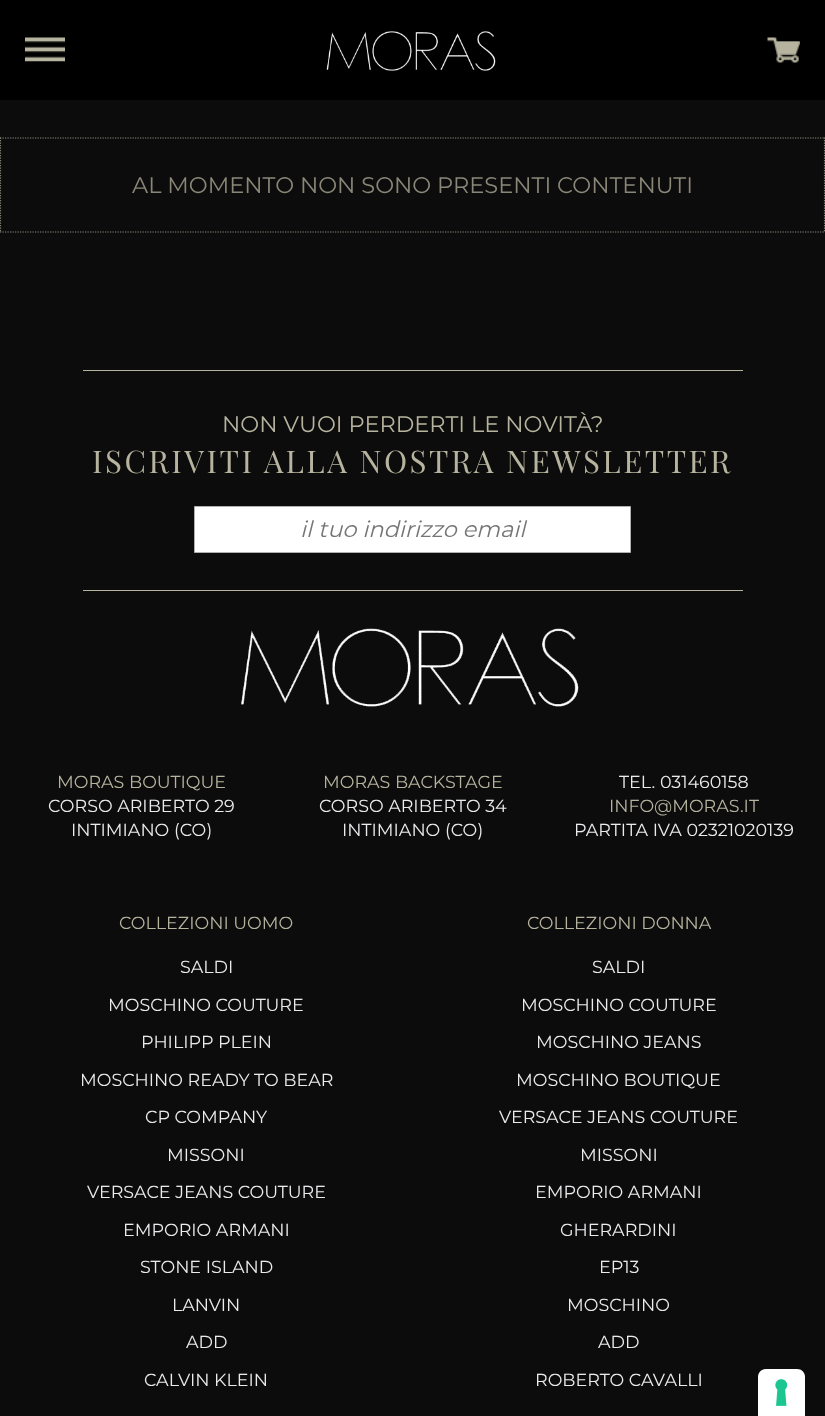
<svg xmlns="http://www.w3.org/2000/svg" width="825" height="1416">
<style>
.a{font:22.5px Montserrat;fill:#8a8778}
.b{font:22.5px Montserrat;fill:#b6b39e}
.c{font:31.25px Playfair Display;letter-spacing:2.5px;fill:#b6b39e}
.d{font:italic 22.5px Montserrat;fill:#757575}
.e{font:17.5px Montserrat;fill:#b6b39e}
.f{font:17.5px Montserrat;fill:#ebebed}
</style>
<rect width="100%" height="100%" fill="#0c0c0c"/>
<path fill="#000" d="M0 0h825v100H0z"/>
<image href="1.png" x="25" y="37" width="40" height="25"/>
<image href="2.png" x="326" y="31" width="170" height="40"/>
<image href="3.png" x="767" y="37" width="33" height="26"/>
<path fill="none" stroke="#8a8778" stroke-width="1.2" stroke-dasharray="1.25 1.25" d="M0 138h825"/>
<path fill="none" stroke="#8a8778" stroke-width="1.2" stroke-dasharray="1.25 1.25" d="M824.5 137.5v95"/>
<path fill="none" stroke="#8a8778" stroke-width="1.2" stroke-dasharray="1.25 1.25" d="M0 232h825"/>
<path fill="none" stroke="#8a8778" stroke-width="1.2" stroke-dasharray="1.25 1.25" d="M.5 137.5v95"/>
<path fill="#b6b39e" d="M83 370h660v1H83z"/>
<path fill="#b6b39e" d="M83 590h660v1H83z"/>
<path fill="#fff" stroke="#b0b0b0" d="M194.5 506.5h436v46H194.5z"/>
<image href="4.png" x="241" y="628" width="338" height="79"/>
<path fill="#fff" d="M766 1369h31c4.5 0 8 3.5 8 8v39h-47v-39c0-4.5 3.5-8 8-8z"/>
<image href="5.png" x="775" y="1379" width="13" height="27"/>
<text class="a" x="132" y="193">AL MOMENTO NON SONO PRESENTI CONTENUTI</text>
<text class="b" x="222" y="432">NON VUOI PERDERTI LE NOVITÀ?</text>
<text class="c" x="92" y="473">ISCRIVITI ALLA NOSTRA NEWSLETTER</text>
<text class="d" x="300" y="537">il tuo indirizzo email</text>
<text class="e" x="57" y="788">MORAS BOUTIQUE</text>
<text class="f" x="48" y="812">CORSO ARIBERTO 29</text>
<text class="f" x="71" y="836">INTIMIANO (CO)</text>
<text class="e" x="323" y="788">MORAS BACKSTAGE</text>
<text class="f" x="319" y="812">CORSO ARIBERTO 34</text>
<text class="f" x="342" y="836">INTIMIANO (CO)</text>
<text class="f" x="619" y="788">TEL. 031460158</text>
<text class="e" x="609" y="812">INFO@MORAS.IT</text>
<text class="f" x="574" y="836">PARTITA IVA 02321020139</text>
<text class="e" x="119" y="929">COLLEZIONI UOMO</text>
<text class="f" x="180" y="973">SALDI</text>
<text class="f" x="108" y="1011">MOSCHINO COUTURE</text>
<text class="f" x="141" y="1048">PHILIPP PLEIN</text>
<text class="f" x="80" y="1086">MOSCHINO READY TO BEAR</text>
<text class="f" x="145" y="1123">CP COMPANY</text>
<text class="f" x="167" y="1161">MISSONI</text>
<text class="f" x="87" y="1198">VERSACE JEANS COUTURE</text>
<text class="f" x="123" y="1236">EMPORIO ARMANI</text>
<text class="f" x="140" y="1273">STONE ISLAND</text>
<text class="f" x="172" y="1311">LANVIN</text>
<text class="f" x="186" y="1348">ADD</text>
<text class="f" x="144" y="1386">CALVIN KLEIN</text>
<text class="e" x="527" y="929">COLLEZIONI DONNA</text>
<text class="f" x="592" y="973">SALDI</text>
<text class="f" x="521" y="1011">MOSCHINO COUTURE</text>
<text class="f" x="536" y="1048">MOSCHINO JEANS</text>
<text class="f" x="516" y="1086">MOSCHINO BOUTIQUE</text>
<text class="f" x="499" y="1123">VERSACE JEANS COUTURE</text>
<text class="f" x="580" y="1161">MISSONI</text>
<text class="f" x="535" y="1198">EMPORIO ARMANI</text>
<text class="f" x="560" y="1236">GHERARDINI</text>
<text class="f" x="599" y="1273">EP13</text>
<text class="f" x="567" y="1311">MOSCHINO</text>
<text class="f" x="598" y="1348">ADD</text>
<text class="f" x="535" y="1386">ROBERTO CAVALLI</text>
</svg>
